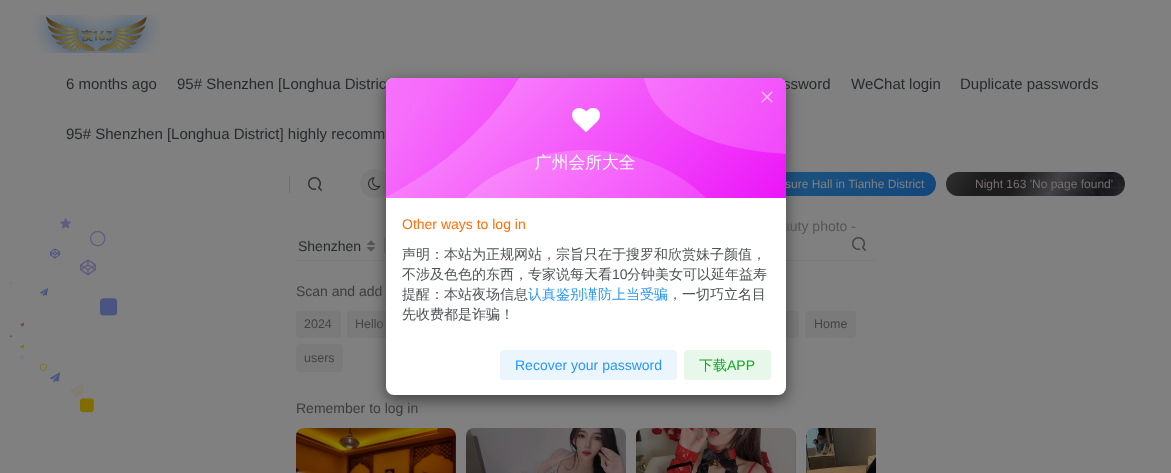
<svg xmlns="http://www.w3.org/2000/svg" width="1171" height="473">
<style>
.a{font:15px Liberation Sans;fill:#272a2c}
.b{font:12px Liberation Sans;fill:#808080}
.c{font:12px Liberation Sans;fill:#767070}
.d{font:14px Liberation Sans;fill:#545556}
.e{font:500 16.75px WenQuanYi Zen Hei;fill:#fff}
.f{font:500 14px WenQuanYi Zen Hei;fill:#4e5358}
.g{font:500 14px WenQuanYi Zen Hei;fill:#2997f7}
.h{font:14px Liberation Sans;fill:#4e5358}
.i{font:14px Liberation Sans;fill:#ff6f06}
.j{font:14px Liberation Sans;fill:#18a52a}
.k{font:500 14px WenQuanYi Zen Hei;fill:#18a52a}
.l{font:14px Liberation Sans;fill:#2997f7}
.m{font:14px Liberation Sans;fill:#272a2c}
.n{font:14px Liberation Sans;fill:#3c3c3c}
.o{font:12.5px Liberation Sans;fill:#444}
</style>
<defs>
<linearGradient id="g1" gradientUnits="userSpaceOnUse" x1="568" y1="57" x2="821" y2="311"><stop offset="0.1" stop-color="#2d627e"/><stop offset="1" stop-color="#13477c"/></linearGradient>
<linearGradient id="g2" gradientUnits="userSpaceOnUse" x1="1108" y1="226" x2="963" y2="142"><stop offset="0" stop-color="#262729"/><stop offset="0.15" stop-color="#151519"/><stop offset="0.4" stop-color="#434345"/><stop offset="0.6" stop-color="#1d1d1e"/><stop offset="0.8" stop-color="#1d1c1c"/><stop offset="1" stop-color="#2f3031"/></linearGradient>
<linearGradient id="g3" gradientUnits="userSpaceOnUse" x1="476" y1="-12" x2="776" y2="288"><stop offset="0.1" stop-color="#f98dfb"/><stop offset="1" stop-color="#ea00f9"/></linearGradient>
<linearGradient id="g4" gradientUnits="userSpaceOnUse" x1="432" y1="142" x2="739" y2="448"><stop offset="0.1" stop-color="#f98dfb"/><stop offset="1" stop-color="#ea00f9"/></linearGradient>
<linearGradient id="g5" gradientUnits="userSpaceOnUse" x1="656" y1="-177" x2="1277" y2="126"><stop offset="0.1" stop-color="#f98dfb" stop-opacity="0.6"/><stop offset="1" stop-color="#ea00f9" stop-opacity="0.6"/></linearGradient>
<linearGradient id="g6" gradientUnits="userSpaceOnUse" x1="149" y1="45" x2="577" y2="128"><stop offset="0.1" stop-color="#f98dfb" stop-opacity="0.4"/><stop offset="1" stop-color="#ea00f9" stop-opacity="0.4"/></linearGradient>
</defs>
<rect width="100%" height="100%" fill="#808080"/>
<image href="1.png" x="60" y="218" width="11" height="11"/>
<image href="2.png" x="90" y="230" width="16" height="17"/>
<image href="3.png" x="50" y="248" width="10" height="11"/>
<image href="4.png" x="80" y="259" width="16" height="17"/>
<image href="5.png" x="10" y="282" width="2" height="3"/>
<image href="6.png" x="40" y="288" width="8" height="9"/>
<image href="7.png" x="100" y="298" width="18" height="18"/>
<image href="8.png" x="20" y="322" width="4" height="5"/>
<image href="9.png" x="10" y="335" width="2" height="3"/>
<image href="10.png" x="20" y="344" width="4" height="5"/>
<image href="11.png" x="20" y="355" width="4" height="5"/>
<image href="12.png" x="40" y="363" width="7" height="8"/>
<image href="13.png" x="50" y="372" width="10" height="11"/>
<image href="14.png" x="70" y="383" width="14" height="14"/>
<image href="15.png" x="80" y="398" width="14" height="15"/>
<image href="16.png" x="33" y="15" width="127" height="38"/>
<path fill="#6e6f6f" d="M289 176h1v17H289z"/>
<image href="17.png" x="308" y="177" width="14" height="14"/>
<circle fill="#7a7a7a" cx="374.5" cy="183.5" r="14.5"/>
<image href="18.png" x="368" y="177" width="13" height="14"/>
<rect fill="url(#g1)" x="453" y="172" width="483" height="24" rx="12"/>
<rect fill="url(#g2)" x="946" y="172" width="179" height="24" rx="12"/>
<path fill="#2d2929" d="M958 175h1v1H958z"/>
<path fill="#7a7a7a" d="M296 260h580v1H296z"/>
<image href="23.png" x="367" y="240" width="8" height="12"/>
<path fill="#6e6f6f" d="M384 238h1v15H384z"/>
<rect fill="#7a7a7a" x="347" y="311" width="45" height="27" rx="4"/>
<rect fill="#7a7a7a" x="601" y="311" width="198" height="27" rx="4"/>
<rect fill="#7a7a7a" x="805" y="311" width="51" height="27" rx="4"/>
<rect fill="#00000080" filter="blur(7.5px)" x="386" y="83" width="400" height="317" rx="8"/>
<image href="22.png" x="852" y="237" width="14" height="14"/>
<rect fill="#7a7a7a" x="296" y="311" width="45" height="27" rx="4"/>
<rect fill="#7a7a7a" x="296" y="344" width="47" height="28" rx="4"/>
<image href="24.png" x="296" y="428" width="160" height="45"/>
<image href="25.png" x="466" y="428" width="160" height="45"/>
<image href="26.png" x="636" y="428" width="160" height="45"/>
<image href="27.png" x="806" y="428" width="70" height="45"/>
<text class="a" x="66" y="89">6 months ago</text>
<text class="a" x="177" y="89">95# Shenzhen [Longhua Distric</text>
<text class="a" x="783" y="89">ssword</text>
<text class="a" x="851" y="89">WeChat login</text>
<text class="a" x="960" y="89">Duplicate passwords</text>
<text class="a" x="66" y="139">95# Shenzhen [Longhua District] highly recomm</text>
<text class="b" x="785" y="188">sure Hall in Tianhe District</text>
<text class="c" x="975" y="188">Night 163 'No page found'</text>
<image href="19.png" x="1086" y="174" width="39" height="22"/>
<text class="d" x="782" y="231">auty photo -</text>
<rect fill="#fff" x="386" y="78" width="400" height="317" rx="8"/>
<path fill="url(#g3)" d="M394 78h384c4.5 0 8 3.5 8 8v112h-400v-112c0-4.5 3.5-8 8-8z"/>
<path fill="url(#g4)" d="M586 150c47 0 90 19 120 48h-241c30-29 73-48 121-48z"/>
<path fill="url(#g5)" d="M786 154c-50-3-129-18-142-76h134c4 0 8 4 8 8z"/>
<image href="20.png" x="761" y="91" width="12" height="12"/>
<text class="e" x="535" y="168">广州会所大全</text>
<image href="21.png" x="572" y="108" width="28" height="24"/>
<path fill="url(#g6)" d="M394 78h125c-31 51-81 92-133 119v-111c0-4 4-8 8-8z"/>
<text class="f" x="402" y="319">先收费都是诈骗！</text>
<text class="f" x="668" y="299">，一切巧立名目</text>
<text class="f" x="402" y="299">提醒：本站夜场信息</text>
<text class="g" x="528" y="299">认真鉴别谨防上当受骗</text>
<text class="f" x="627" y="279">分钟美女可以延年益寿</text>
<text class="h" x="612" y="279">10</text>
<text class="f" x="402" y="279">不涉及色色的东西，专家说每天看</text>
<text class="f" x="402" y="259">声明：本站为正规网站，宗旨只在于搜罗和欣赏妹子颜值，</text>
<text class="i" x="402" y="229">Other ways to log in</text>
<rect fill="#e7f8ea" x="684" y="350" width="87" height="30" rx="4"/>
<text class="j" x="727" y="370">APP</text>
<text class="k" x="699" y="370">下载</text>
<rect fill="#eaf5fe" x="500" y="350" width="177" height="30" rx="4"/>
<text class="l" x="515" y="370">Recover your password</text>
<text class="m" x="298" y="251">Shenzhen</text>
<text class="n" x="296" y="296">Scan and add</text>
<text class="o" x="304" y="328">2024</text>
<text class="o" x="355" y="328">Hello</text>
<text class="o" x="814" y="328">Home</text>
<text class="o" x="304" y="362">users</text>
<text class="n" x="296" y="413">Remember to log in</text>
</svg>
